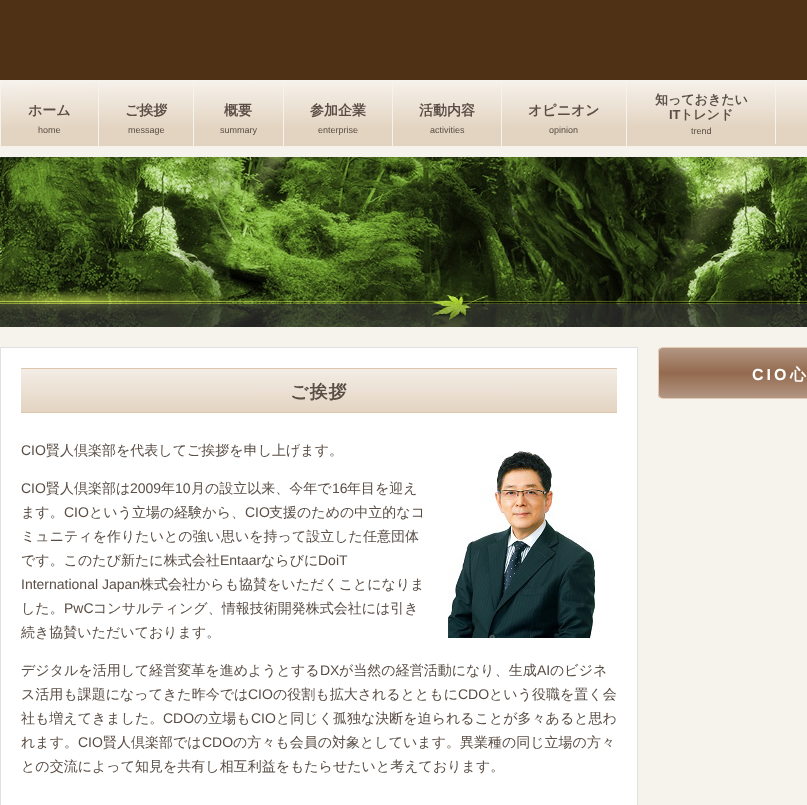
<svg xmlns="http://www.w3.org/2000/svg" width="807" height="805">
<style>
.a{font:bold 14px WenQuanYi Zen Hei;fill:#594d44}
.b{font:9px Liberation Sans;fill:#594d44}
.c{font:bold 13px WenQuanYi Zen Hei;fill:#594d44}
.d{font:bold 13px Liberation Sans;fill:#594d44}
.e{font:bold 16px Liberation Sans;letter-spacing:3px;fill:#fff}
.f{font:bold 16px WenQuanYi Zen Hei;letter-spacing:3px;fill:#fff}
.g{font:bold 18px WenQuanYi Zen Hei;letter-spacing:1px;fill:#594d44}
.h{font:14px Liberation Sans;fill:#594d44}
.i{font:500 14px WenQuanYi Zen Hei;fill:#594d44}
</style>
<defs>
<linearGradient id="g1" gradientUnits="userSpaceOnUse" x1="404" y1="80" x2="404" y2="146"><stop offset="0" stop-color="#f3ede6"/><stop offset="1" stop-color="#e3d4c1"/></linearGradient>
<linearGradient id="g2" gradientUnits="userSpaceOnUse" x1="49" y1="80" x2="50" y2="146"><stop offset="0" stop-color="#f6f2ec"/><stop offset="0.73" stop-color="#e3d4c1"/></linearGradient>
<linearGradient id="g3" gradientUnits="userSpaceOnUse" x1="146" y1="80" x2="146" y2="146"><stop offset="0" stop-color="#f6f2ec"/><stop offset="0.73" stop-color="#e3d4c1"/></linearGradient>
<linearGradient id="g4" gradientUnits="userSpaceOnUse" x1="239" y1="80" x2="239" y2="146"><stop offset="0" stop-color="#f6f2ec"/><stop offset="0.73" stop-color="#e3d4c1"/></linearGradient>
<linearGradient id="g5" gradientUnits="userSpaceOnUse" x1="338" y1="80" x2="338" y2="146"><stop offset="0" stop-color="#f6f2ec"/><stop offset="0.73" stop-color="#e3d4c1"/></linearGradient>
<linearGradient id="g6" gradientUnits="userSpaceOnUse" x1="447" y1="80" x2="447" y2="146"><stop offset="0" stop-color="#f6f2ec"/><stop offset="0.73" stop-color="#e3d4c1"/></linearGradient>
<linearGradient id="g7" gradientUnits="userSpaceOnUse" x1="564" y1="80" x2="564" y2="146"><stop offset="0" stop-color="#f6f2ec"/><stop offset="0.73" stop-color="#e3d4c1"/></linearGradient>
<linearGradient id="g8" gradientUnits="userSpaceOnUse" x1="701" y1="80" x2="701" y2="144"><stop offset="0" stop-color="#f6f2ec"/><stop offset="0.73" stop-color="#e3d4c1"/></linearGradient>
<linearGradient id="g9" gradientUnits="userSpaceOnUse" x1="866" y1="80" x2="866" y2="146"><stop offset="0" stop-color="#f6f2ec"/><stop offset="0.73" stop-color="#e3d4c1"/></linearGradient>
<clipPath id="clip1"><rect x="658" y="347" width="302" height="52" rx="5"/></clipPath>
<linearGradient id="g10" gradientUnits="userSpaceOnUse" x1="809" y1="348" x2="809" y2="398"><stop offset="0" stop-color="#b39683"/><stop offset="0.5" stop-color="#936a4e"/><stop offset="1" stop-color="#b39683"/></linearGradient>
<linearGradient id="g11" gradientUnits="userSpaceOnUse" x1="319" y1="369" x2="319" y2="412"><stop offset="0" stop-color="#f3ede6"/><stop offset="1" stop-color="#e3d4c1"/></linearGradient>
</defs>
<rect width="100%" height="100%" fill="#f6f3ec"/>
<path fill="#4f3216" d="M0 0h807v80H0z"/>
<path fill="url(#g1)" d="M627 144h149v2H627z"/>
<path fill="#f7f0ea" d="M0 146h807v1H0z"/>
<path fill="url(#g2)" d="M1 82h97v64H1z"/>
<path fill="url(#g3)" d="M99 82h94v64H99z"/>
<path fill="url(#g4)" d="M194 82h89v64H194z"/>
<path fill="url(#g5)" d="M284 82h108v64H284z"/>
<path fill="url(#g6)" d="M393 82h108v64H393z"/>
<path fill="url(#g7)" d="M502 82h124v64H502z"/>
<path fill="url(#g8)" d="M627 82h148v62H627z"/>
<path fill="url(#g9)" d="M776 82h31v64H776z"/>
<image href="1.png" x="0" y="157" width="807" height="170"/>
<g clip-path="url(#clip1)">
<path fill="url(#g10)" d="M658 348h149v50H658z"/>
</g>
<rect fill="none" stroke="#e2ccb5" x="658.5" y="347.5" width="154" height="51" rx="4.5"/>
<path fill="#fff" stroke="#e0e0e0" d="M0.5 347.5h637v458H0.5z"/>
<path fill="url(#g11)" d="M21 369h596v43H21z"/>
<path fill="#dcc6b0" d="M21 368h596v1H21z"/>
<path fill="#dcc6b0" d="M21 412h596v1H21z"/>
<image href="2.png" x="448" y="448" width="148" height="190"/>
<text class="a" x="28" y="115">ホーム</text>
<text class="b" x="38" y="133">home</text>
<text class="a" x="125" y="115">ご挨拶</text>
<text class="b" x="128" y="133">message</text>
<text class="a" x="224" y="115">概要</text>
<text class="b" x="220" y="133">summary</text>
<text class="a" x="310" y="115">参加企業</text>
<text class="b" x="318" y="133">enterprise</text>
<text class="a" x="419" y="115">活動内容</text>
<text class="b" x="430" y="133">activities</text>
<text class="a" x="528" y="115">オピニオン</text>
<text class="b" x="549" y="133">opinion</text>
<text class="c" x="655" y="104">知っておきたい</text>
<text class="d" x="669" y="119">IT</text>
<text class="c" x="680" y="119">トレンド</text>
<text class="b" x="691" y="134">trend</text>
<text class="e" x="752" y="380">CIO</text>
<text class="f" x="790" y="380">心</text>
<text class="g" x="290" y="398">ご挨拶</text>
<text class="h" x="21" y="455">CIO</text>
<text class="i" x="46" y="455">賢人倶楽部を代表してご挨拶を申し上げます。</text>
<text class="h" x="21" y="493">CIO</text>
<text class="i" x="46" y="493">賢人倶楽部は</text>
<text class="h" x="130" y="493">2009</text>
<text class="i" x="161" y="493">年</text>
<text class="h" x="175" y="493">10</text>
<text class="i" x="191" y="493">月の設立以来、今年で</text>
<text class="h" x="332" y="493">16</text>
<text class="i" x="347" y="493">年目を迎え</text>
<text class="i" x="21" y="517">ます。</text>
<text class="h" x="64" y="517">CIO</text>
<text class="i" x="89" y="517">という立場の経験から、</text>
<text class="h" x="245" y="517">CIO</text>
<text class="i" x="269" y="517">支援のための中立的なコ</text>
<text class="i" x="21" y="541">ミュニティを作りたいとの強い思いを持って設立した任意団体</text>
<text class="i" x="21" y="565">です。このたび新たに株式会社</text>
<text class="h" x="220" y="565">Entaar</text>
<text class="i" x="261" y="565">ならびに</text>
<text class="h" x="318" y="565">DoiT</text>
<text class="h" x="21" y="589">International Japan</text>
<text class="i" x="140" y="589">株式会社からも協賛をいただくことになりま</text>
<text class="i" x="21" y="613">した。</text>
<text class="h" x="64" y="613">PwC</text>
<text class="i" x="93" y="613">コンサルティング、情報技術開発株式会社には引き</text>
<text class="i" x="21" y="637">続き協賛いただいております。</text>
<text class="i" x="21" y="675">デジタルを活用して経営変革を進めようとする</text>
<text class="h" x="320" y="675">DX</text>
<text class="i" x="339" y="675">が当然の経営活動になり、生成</text>
<text class="h" x="537" y="675">AI</text>
<text class="i" x="550" y="675">のビジネ</text>
<text class="i" x="21" y="699">ス活用も課題になってきた昨今では</text>
<text class="h" x="248" y="699">CIO</text>
<text class="i" x="273" y="699">の役割も拡大されるとともに</text>
<text class="h" x="458" y="699">CDO</text>
<text class="i" x="489" y="699">という役職を置く会</text>
<text class="i" x="21" y="723">社も増えてきました。</text>
<text class="h" x="163" y="723">CDO</text>
<text class="i" x="194" y="723">の立場も</text>
<text class="h" x="251" y="723">CIO</text>
<text class="i" x="276" y="723">と同じく孤独な決断を迫られることが多々あると思わ</text>
<text class="i" x="21" y="747">れます。</text>
<text class="h" x="78" y="747">CIO</text>
<text class="i" x="103" y="747">賢人倶楽部では</text>
<text class="h" x="202" y="747">CDO</text>
<text class="i" x="233" y="747">の方々も会員の対象としています。異業種の同じ立場の方々</text>
<text class="i" x="21" y="771">との交流によって知見を共有し相互利益をもたらせたいと考えております。</text>
</svg>
